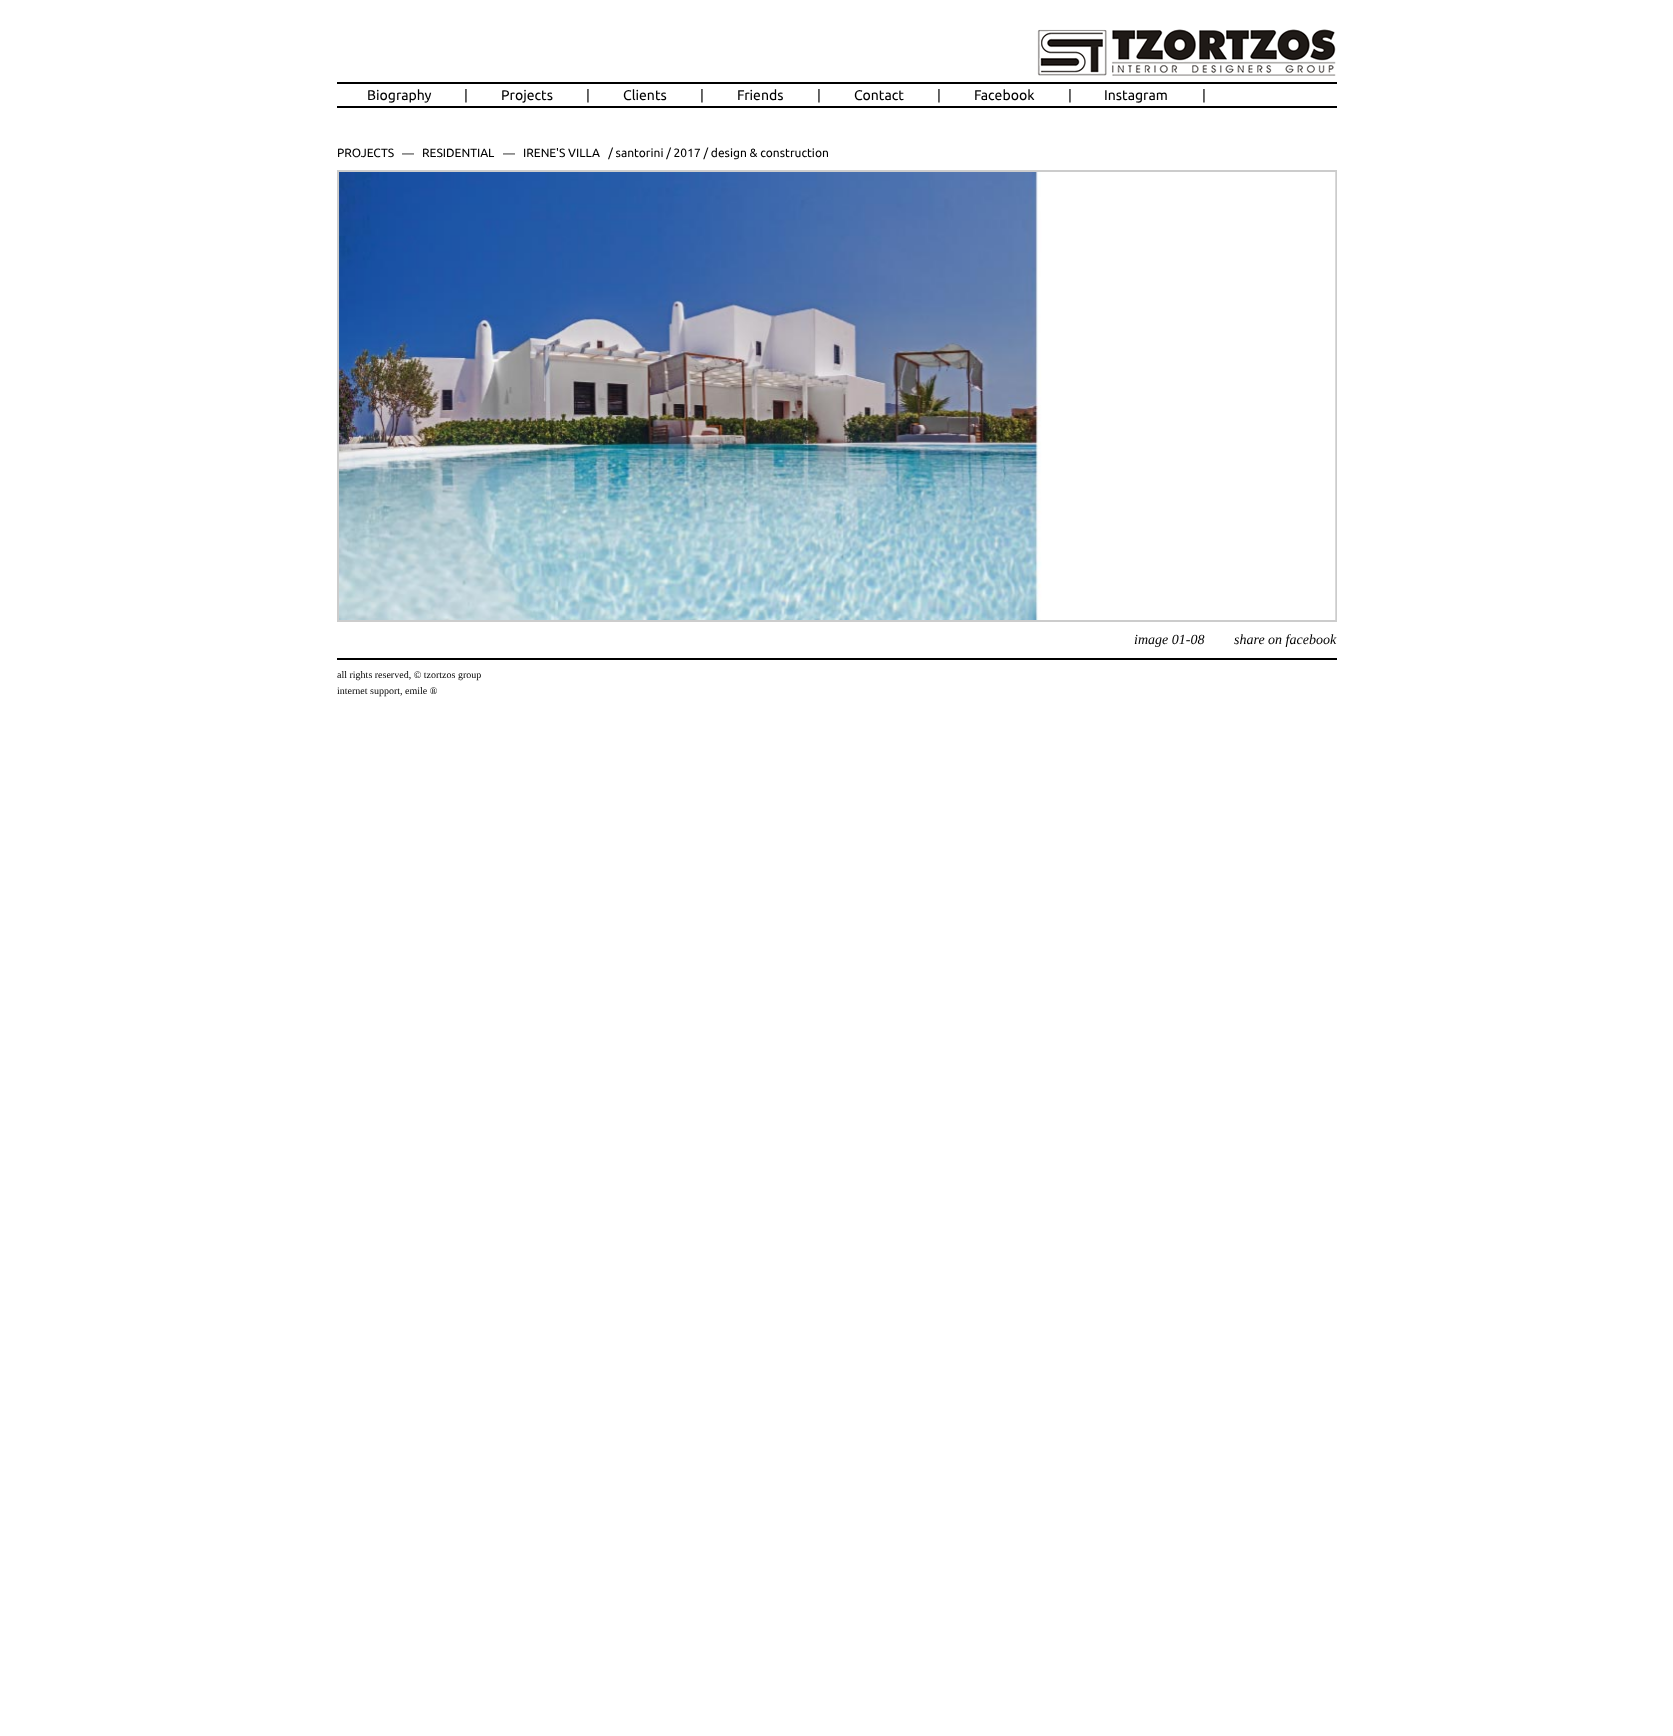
<svg xmlns="http://www.w3.org/2000/svg" width="1673" height="1736">
<style>
.a{font:14px Ubuntu;fill:#000}
.b{font:12px Ubuntu;fill:#000}
.c{font:12px Liberation Sans;fill:#000}
.d{font:italic 14px Liberation Serif;fill:#000}
.e{font:10px Liberation Serif;fill:#000}
</style>
<rect width="100%" height="100%" fill="#fff"/>
<image href="1.png" x="1037" y="29" width="299" height="47"/>
<path fill="#000" d="M337 82h1000v2H337z"/>
<path fill="#000" d="M337 106h1000v2H337z"/>
<path fill="none" stroke="#ccc" stroke-width="2" d="M338 171h998v450H338z"/>
<image href="2.png" x="339" y="172" width="997" height="448"/>
<path fill="#000" d="M337 658h1000v2H337z"/>
<text class="a" x="367" y="100">Biography</text>
<text class="a" x="464" y="100">|</text>
<text class="a" x="501" y="100">Projects</text>
<text class="a" x="586" y="100">|</text>
<text class="a" x="623" y="100">Clients</text>
<text class="a" x="700" y="100">|</text>
<text class="a" x="737" y="100">Friends</text>
<text class="a" x="817" y="100">|</text>
<text class="a" x="854" y="100">Contact</text>
<text class="a" x="937" y="100">|</text>
<text class="a" x="974" y="100">Facebook</text>
<text class="a" x="1068" y="100">|</text>
<text class="a" x="1104" y="100">Instagram</text>
<text class="a" x="1202" y="100">|</text>
<text class="b" x="337" y="157">PROJECTS</text>
<text class="c" x="402" y="157">―</text>
<text class="b" x="422" y="157">RESIDENTIAL</text>
<text class="c" x="503" y="157">―</text>
<text class="b" xml:space="preserve" x="523" y="157">IRENE'S VILLA   / santorini / 2017 / design &amp; construction</text>
<text class="d" x="1134" y="644">image 01-08</text>
<text class="d" x="1234" y="644">share on facebook</text>
<text class="e" x="337" y="678">all rights reserved, © tzortzos group</text>
<text class="e" x="337" y="694">internet support, emile ®</text>
</svg>
